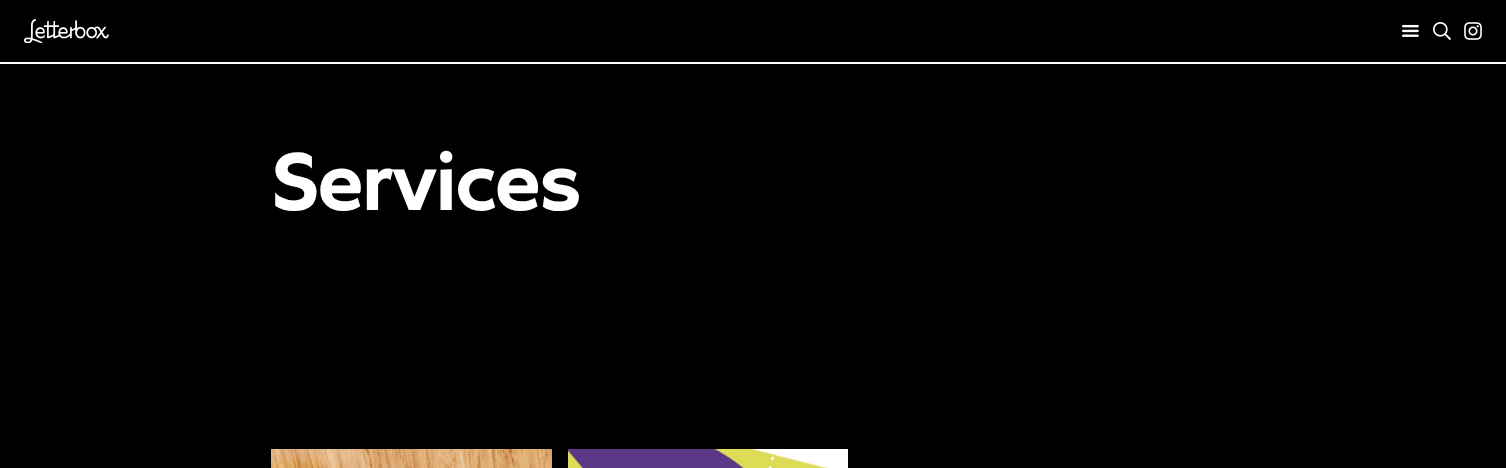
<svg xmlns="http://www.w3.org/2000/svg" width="1506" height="468">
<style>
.a{font:bold 75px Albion;letter-spacing:-2.25px;fill:#fff}
</style>
<rect width="100%" height="100%" fill="#000"/>
<path fill="#fff" d="M0 62h1506v2H0z"/>
<image href="1.png" x="24" y="19" width="85" height="24"/>
<image href="2.png" x="1402" y="24" width="17" height="13"/>
<image href="3.png" x="1433" y="22" width="18" height="18"/>
<image href="4.png" x="1464" y="22" width="18" height="18"/>
<image href="5.png" x="271" y="449" width="281" height="19"/>
<image href="6.png" x="568" y="449" width="280" height="19"/>
<text class="a" x="271" y="210">Services</text>
</svg>
